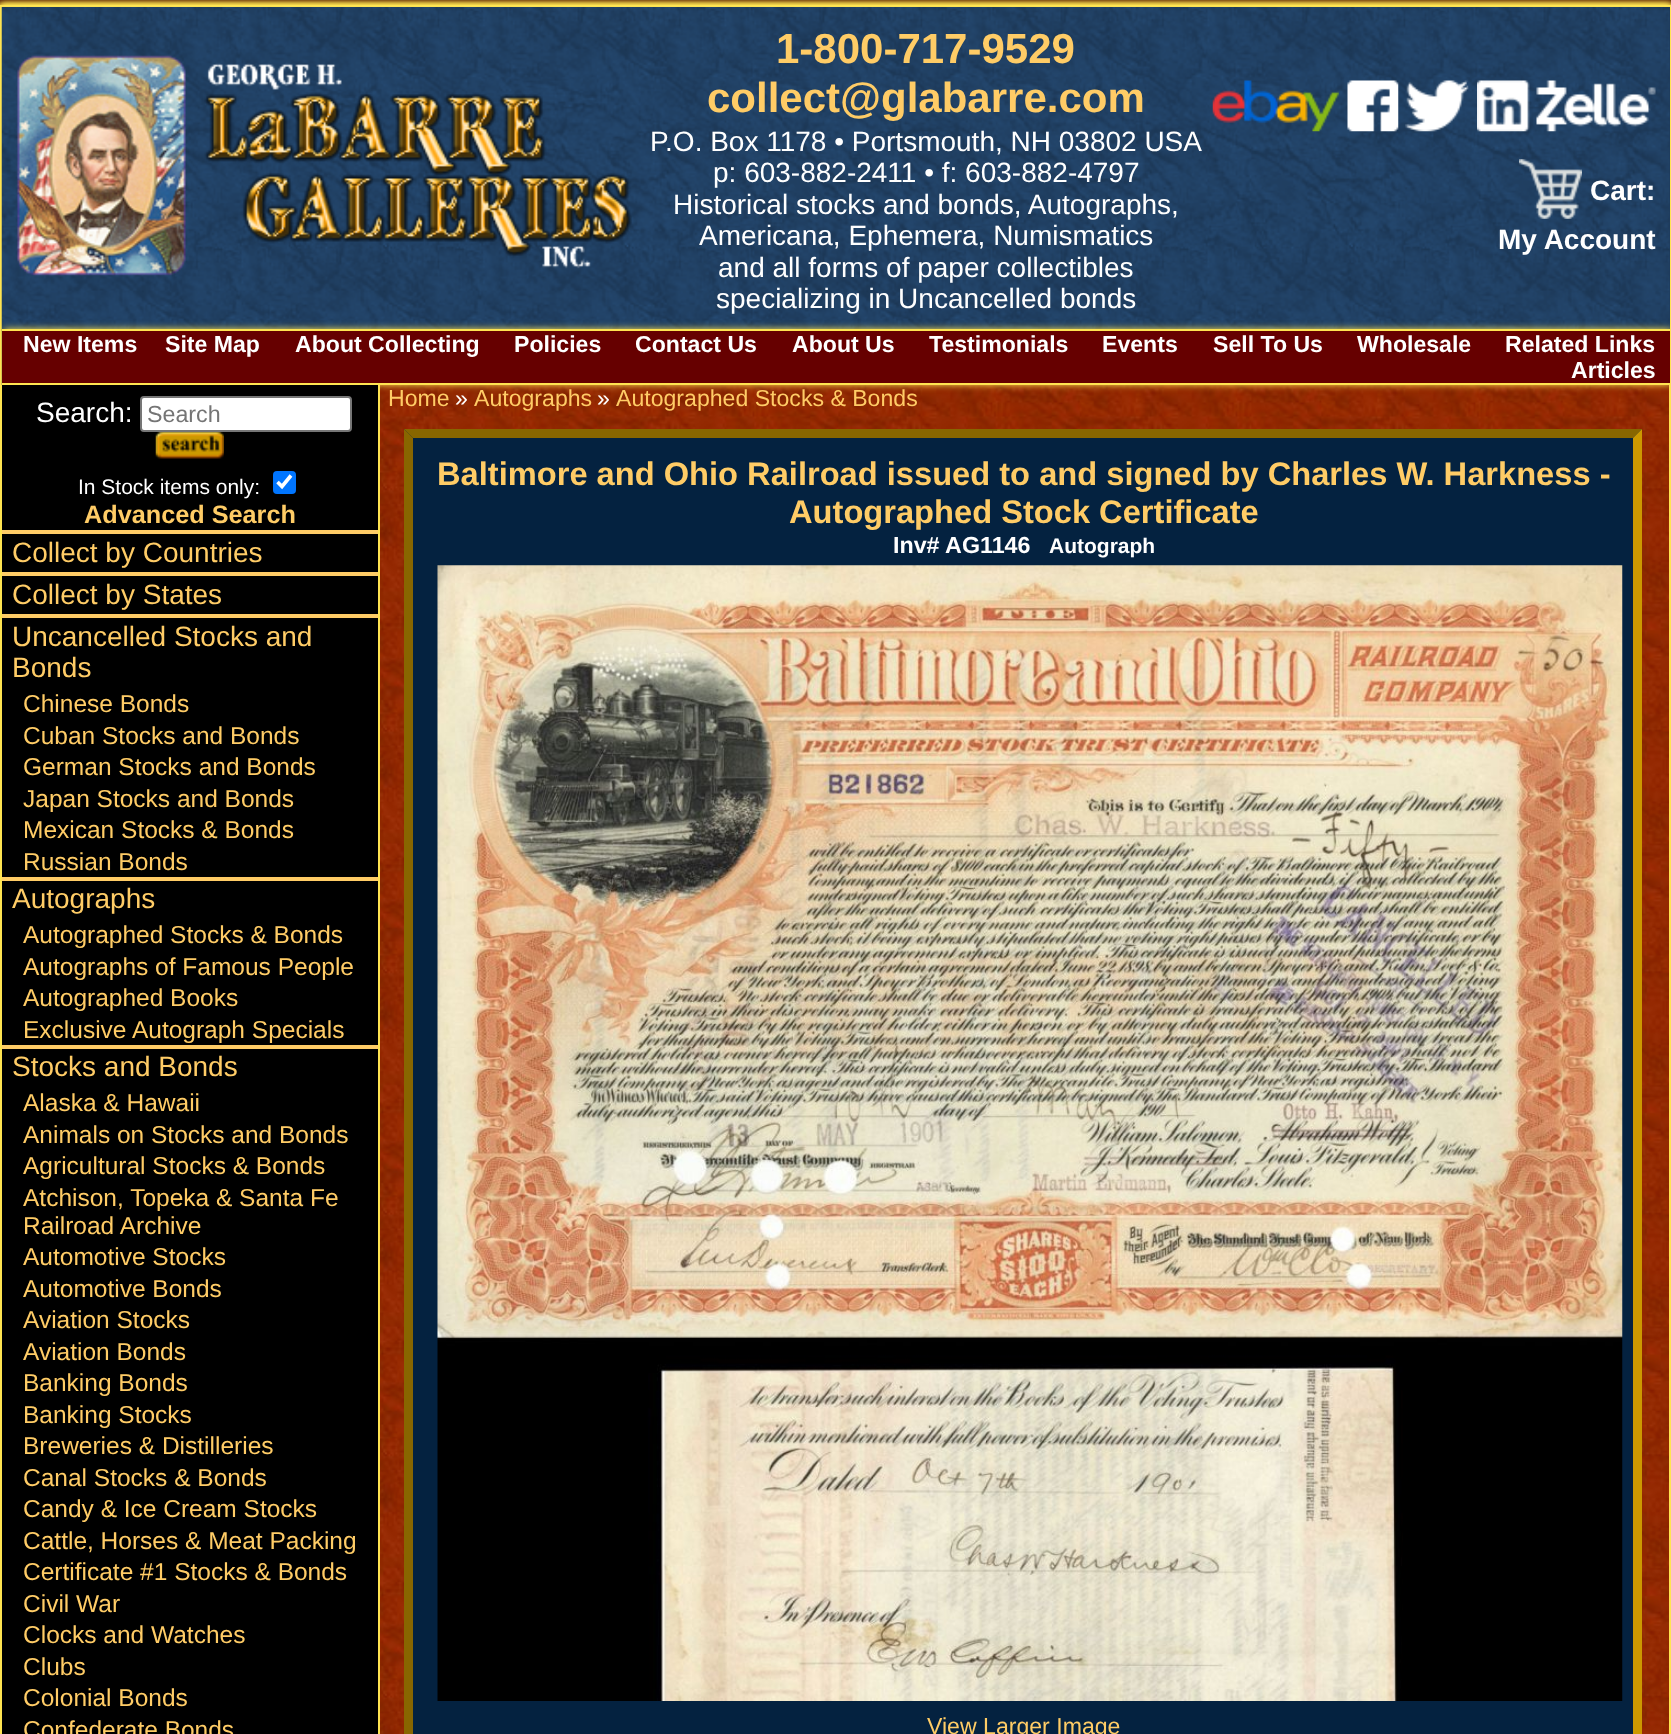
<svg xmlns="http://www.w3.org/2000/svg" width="1671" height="1734">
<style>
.a{font:bold 42px Liberation Sans;fill:#fc6}
.b{font:28px Liberation Sans;fill:#fff}
.c{font:bold 28px Liberation Sans;fill:#fff}
.d{font:bold 23.1px Liberation Sans;fill:#fff}
.e{font:23.25px Liberation Sans;fill:#757575}
.f{font:21px Liberation Sans;fill:#fff}
.g{font:bold 25.25px Liberation Sans;fill:#fc6}
.h{font:28px Liberation Sans;fill:#fc6}
.i{font:24.5px Liberation Sans;fill:#fc6}
.j{font:23.1px Liberation Sans;fill:#fc6}
.k{font:23.1px Liberation Sans;fill:#fff}
.l{font:bold 32.65px Liberation Sans;fill:#fc6}
.m{font:bold 23.25px Liberation Sans;fill:#fff}
.n{font:bold 21px Liberation Sans;fill:#fff}
</style>
<rect width="100%" height="100%" fill="#541900"/>
<path fill="#ffe451" filter="blur(3.5px)" d="M0 4h1671v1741H0z"/>
<path fill="#ffe451" filter="blur(3.5px)" d="M-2 5h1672v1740H-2z"/>
<path fill="#ffe451" filter="blur(3.5px)" d="M0 7h1671v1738H0z"/>
<path fill="#ffe451" filter="blur(3.5px)" d="M2 5h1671v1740H2z"/>
<image href="1.png" x="380" y="385" width="1289" height="1349"/>
<path fill="none" stroke="#ffe451" stroke-width="2" d="M1 6h1669v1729H1z"/>
<path fill="#1e3b5d" d="M1669 7h1v322H1669z"/>
<image href="2.png" x="1" y="7" width="1669" height="378"/>
<image href="3.png" x="17" y="55" width="615" height="221"/>
<image href="4.png" x="1212" y="80" width="127" height="52"/>
<image href="5.png" x="1347" y="80" width="52" height="52"/>
<image href="6.png" x="1405" y="80" width="64" height="52"/>
<image href="7.png" x="1477" y="80" width="53" height="52"/>
<image href="8.png" x="1536" y="80" width="120" height="52"/>
<image href="9.png" x="1519" y="159" width="63" height="60"/>
<path fill="#ffe451" filter="blur(3.5px)" d="M4 329h1667v56H4z"/>
<path fill="#600" d="M2 331h1668v52H2z"/>
<path fill="#ffe451" d="M2 329h1668v2H2z"/>
<path fill="#ffe451" d="M2 383h1668v2H2z"/>
<path fill="#000" d="M2 385h376v1349H2z"/>
<path fill="#fc6" d="M2 530h376v4H2z"/>
<rect fill="#fff" stroke="#767676" stroke-width="2" x="141" y="397" width="210" height="34" rx="3"/>
<image href="10.png" x="155" y="432" width="69" height="27"/>
<rect fill="#0075ff" x="273" y="471" width="23" height="23" rx="4"/>
<path fill="none" stroke="#fff" stroke-width="3.6" d="M277.5 482l4.5 4.5l9-11"/>
<path fill="#fc6" d="M2 572h376v4H2z"/>
<path fill="#fc6" d="M2 614h376v4H2z"/>
<path fill="#fc6" d="M2 877h376v4H2z"/>
<path fill="#fc6" d="M2 1045h376v4H2z"/>
<path fill="#042240" d="M404 429h1238v1305H404z"/>
<path fill="#860" d="M404 429h1238l-9 9h-1220z"/>
<path fill="#c90" d="M1642 429v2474l-9-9v-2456z"/>
<path fill="#860" d="M404 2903v-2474l9 9v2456z"/>
<image href="11.png" x="437" y="565" width="1186" height="1136"/>
<text class="a" x="776" y="63">1-800-717-9529</text>
<text class="a" x="707" y="112">collect@glabarre.com</text>
<text class="b" x="650" y="151">P.O. Box 1178 • Portsmouth, NH 03802 USA</text>
<text class="b" x="713" y="182">p: 603-882-2411 • f: 603-882-4797</text>
<text class="b" x="673" y="214">Historical stocks and bonds, Autographs,</text>
<text class="b" x="699" y="245">Americana, Ephemera, Numismatics</text>
<text class="b" x="718" y="277">and all forms of paper collectibles</text>
<text class="b" x="716" y="308">specializing in Uncancelled bonds</text>
<text class="c" x="1590" y="200">Cart:</text>
<text class="c" x="1498" y="249">My Account</text>
<text class="d" x="23" y="352">New Items</text>
<text class="d" x="165" y="352">Site Map</text>
<text class="d" x="295" y="352">About Collecting</text>
<text class="d" x="514" y="352">Policies</text>
<text class="d" x="635" y="352">Contact Us</text>
<text class="d" x="792" y="352">About Us</text>
<text class="d" x="929" y="352">Testimonials</text>
<text class="d" x="1102" y="352">Events</text>
<text class="d" x="1213" y="352">Sell To Us</text>
<text class="d" x="1357" y="352">Wholesale</text>
<text class="d" x="1505" y="352">Related Links</text>
<text class="d" x="1571" y="378">Articles</text>
<text class="b" x="36" y="422">Search:</text>
<text class="e" x="147" y="422">Search</text>
<text class="f" x="78" y="494">In Stock items only:</text>
<text class="g" x="84" y="523">Advanced Search</text>
<text class="h" x="12" y="562">Collect by Countries</text>
<text class="h" x="12" y="604">Collect by States</text>
<text class="h" x="12" y="646">Uncancelled Stocks and</text>
<text class="h" x="12" y="677">Bonds</text>
<text class="i" x="23" y="712">Chinese Bonds</text>
<text class="i" x="23" y="744">Cuban Stocks and Bonds</text>
<text class="i" x="23" y="775">German Stocks and Bonds</text>
<text class="i" x="23" y="807">Japan Stocks and Bonds</text>
<text class="i" x="23" y="838">Mexican Stocks &amp; Bonds</text>
<text class="i" x="23" y="870">Russian Bonds</text>
<text class="h" x="12" y="908">Autographs</text>
<text class="i" x="23" y="943">Autographed Stocks &amp; Bonds</text>
<text class="i" x="23" y="975">Autographs of Famous People</text>
<text class="i" x="23" y="1006">Autographed Books</text>
<text class="i" x="23" y="1038">Exclusive Autograph Specials</text>
<text class="h" x="12" y="1076">Stocks and Bonds</text>
<text class="i" x="23" y="1111">Alaska &amp; Hawaii</text>
<text class="i" x="23" y="1143">Animals on Stocks and Bonds</text>
<text class="i" x="23" y="1174">Agricultural Stocks &amp; Bonds</text>
<text class="i" x="23" y="1206">Atchison, Topeka &amp; Santa Fe</text>
<text class="i" x="23" y="1234">Railroad Archive</text>
<text class="i" x="23" y="1265">Automotive Stocks</text>
<text class="i" x="23" y="1297">Automotive Bonds</text>
<text class="i" x="23" y="1328">Aviation Stocks</text>
<text class="i" x="23" y="1360">Aviation Bonds</text>
<text class="i" x="23" y="1391">Banking Bonds</text>
<text class="i" x="23" y="1423">Banking Stocks</text>
<text class="i" x="23" y="1454">Breweries &amp; Distilleries</text>
<text class="i" x="23" y="1486">Canal Stocks &amp; Bonds</text>
<text class="i" x="23" y="1517">Candy &amp; Ice Cream Stocks</text>
<text class="i" x="23" y="1549">Cattle, Horses &amp; Meat Packing</text>
<text class="i" x="23" y="1580">Certificate #1 Stocks &amp; Bonds</text>
<text class="i" x="23" y="1612">Civil War</text>
<text class="i" x="23" y="1643">Clocks and Watches</text>
<text class="i" x="23" y="1675">Clubs</text>
<text class="i" x="23" y="1706">Colonial Bonds</text>
<text class="i" x="23" y="1738">Confederate Bonds</text>
<text class="j" x="388" y="406">Home</text>
<text class="k" x="455" y="406">»</text>
<text class="j" x="474" y="406">Autographs</text>
<text class="k" x="597" y="406">»</text>
<text class="j" x="616" y="406">Autographed Stocks &amp; Bonds</text>
<text class="l" x="437" y="485">Baltimore and Ohio Railroad issued to and signed by Charles W. Harkness -</text>
<text class="l" x="789" y="523">Autographed Stock Certificate</text>
<text class="m" x="893" y="553">Inv# AG1146</text>
<text class="n" x="1049" y="553">Autograph</text>
<text class="j" x="927" y="1734">View Larger Image</text>
</svg>
